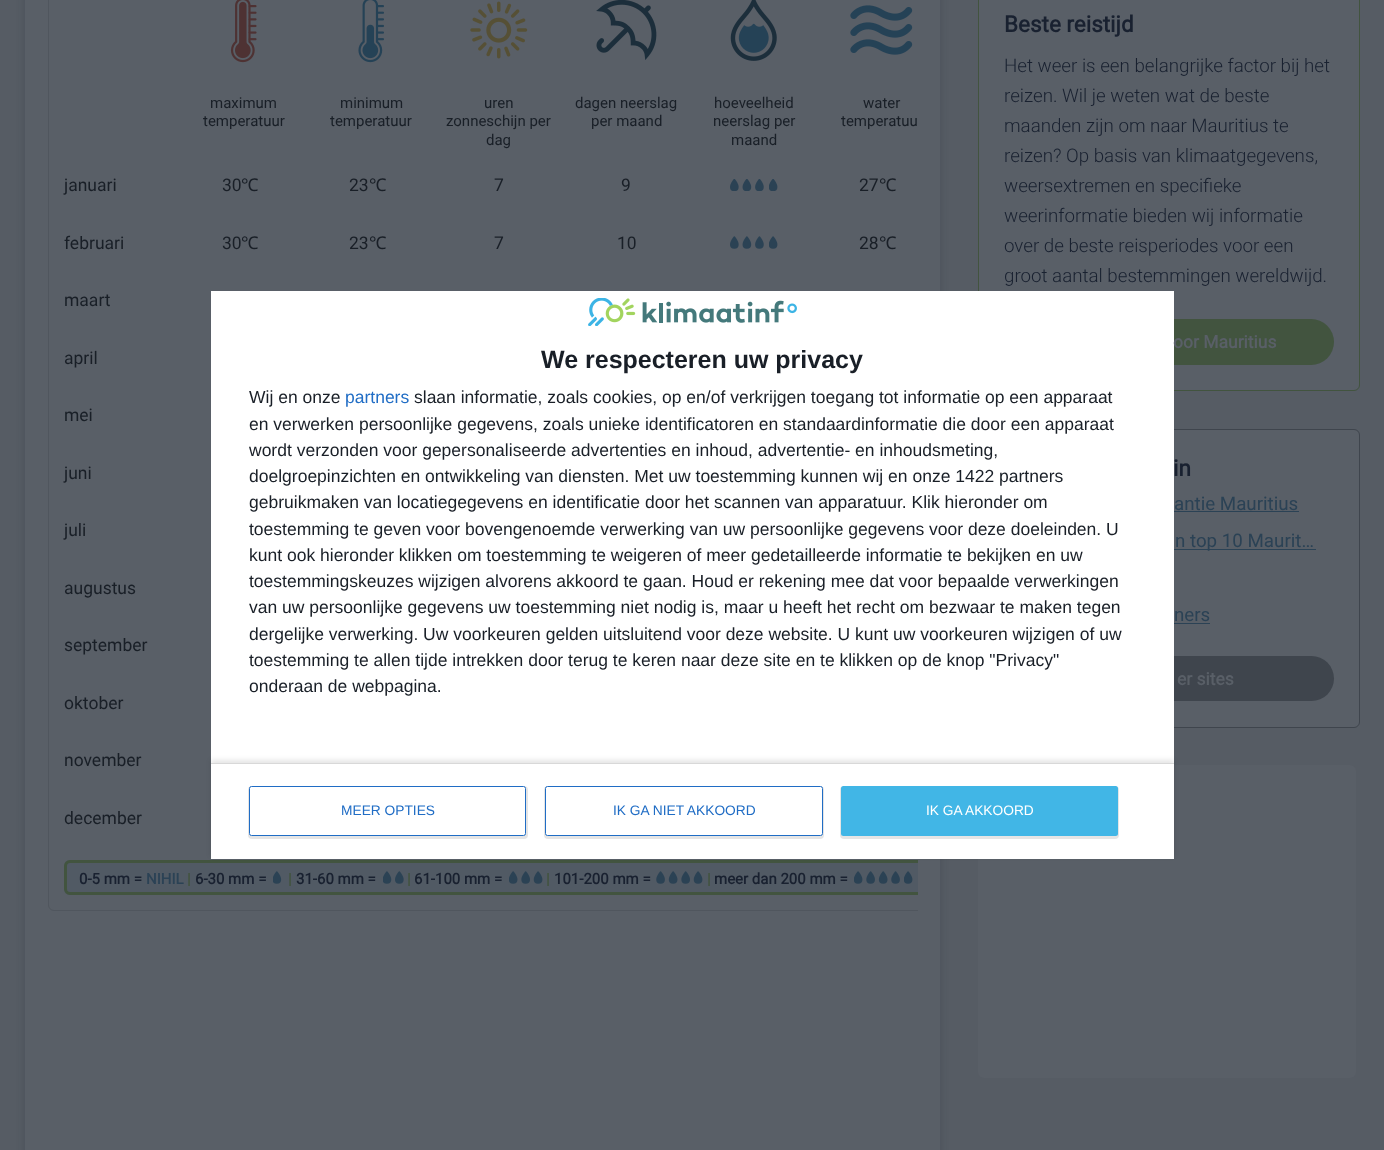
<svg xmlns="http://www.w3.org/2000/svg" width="1384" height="1150">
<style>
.a{font:15px Roboto;fill:#191f27}
.b{font:17.5px Roboto;fill:#191f27}
.c{font:17.5px Noto Sans;fill:#191f27}
.d{font:bold 15px Roboto;fill:#192130}
.e{font:bold 15px Roboto;fill:#2b4255}
.f{font:bold 15px Roboto;fill:#42543f}
.g{font:bold 22.5px Roboto;fill:#192130}
.h{font:300 18.75px Roboto;fill:#192130}
.i{font:bold 17.5px Roboto;fill:#595f67}
.j{font:18.75px Roboto;fill:#2b4255}
.k{font:bold 25px Liberation Sans;fill:#191f27}
.l{font:17.5px Liberation Sans;fill:#191f27}
.m{font:17.5px Liberation Sans;fill:#206dc5}
.n{font:13.75px Liberation Sans;fill:#206dc5}
.o{font:13.75px Liberation Sans;fill:#fff}
</style>
<defs>
<clipPath id="clip1"><path d="M48 0h870v911H48z"/></clipPath>
<clipPath id="clip2"><path d="M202 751h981v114h-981zm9 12h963v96h-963z" clip-rule="evenodd"/></clipPath>
</defs>
<rect width="100%" height="100%" fill="#565c64"/>
<rect fill="#191f2733" filter="blur(4px)" x="25" y="-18" width="915" height="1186" rx="6"/>
<path fill="#595f67" d="M25 0h915v1150H25z"/>
<g clip-path="url(#clip1)">
<rect fill="none" stroke="#50565e" x="48.5" y="-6.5" width="899" height="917" rx="5.5"/>
</g>
<image href="1.png" x="230" y="0" width="27" height="63"/>
<image href="2.png" x="358" y="0" width="26" height="63"/>
<image href="3.png" x="470" y="1" width="58" height="58"/>
<image href="4.png" x="596" y="0" width="61" height="60"/>
<image href="5.png" x="730" y="0" width="47" height="61"/>
<image href="6.png" x="850" y="5" width="63" height="50"/>
<image href="7.png" x="730" y="179" width="34" height="12"/>
<image href="8.png" x="769" y="179" width="9" height="12"/>
<image href="9.png" x="730" y="236" width="34" height="13"/>
<image href="10.png" x="769" y="236" width="9" height="13"/>
<path fill="#515a64" d="M70 860h848v35h-848c-3.5 0-6-2.5-6-6v-23c0-3.5 2.5-6 6-6z"/>
<g clip-path="url(#clip1)">
<rect fill="none" stroke="#42543f" stroke-width="3" x="65.5" y="861.5" width="864" height="32" rx="4.5"/>
</g>
<image href="11.png" x="273" y="871" width="9" height="13"/>
<image href="12.png" x="383" y="871" width="21" height="13"/>
<image href="13.png" x="509" y="871" width="34" height="13"/>
<image href="14.png" x="656" y="871" width="47" height="13"/>
<image href="15.png" x="854" y="871" width="46" height="13"/>
<image href="16.png" x="904" y="871" width="9" height="13"/>
<rect fill="#595f67" stroke="#42543f" x="978.5" y="-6.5" width="381" height="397" rx="5.5"/>
<rect fill="#42543f" x="1004" y="319" width="330" height="46" rx="23"/>
<rect fill="#595f67" stroke="#3f454d" x="978.5" y="429.5" width="381" height="298" rx="5.5"/>
<path fill="#2b4255" d="M1174 511h125v1H1174z"/>
<path fill="#2b4255" d="M1174 549h142v1H1174z"/>
<path fill="#2b4255" d="M1174 623h36v1H1174z"/>
<rect fill="#3f454d" x="1004" y="656" width="330" height="45" rx="22.5"/>
<rect fill="#595f67" x="978" y="765" width="378" height="313" rx="6"/>
<path fill="#fff" d="M211 291h963v568H211z"/>
<image href="17.png" x="588" y="298" width="209" height="28"/>
<g clip-path="url(#clip2)">
<path fill="#0000001a" filter="blur(2.5px)" d="M211 760h963v96H211z"/>
</g>
<path fill="#d8d8d8" d="M211 763h963v1H211z"/>
<rect fill="#0000001a" filter="blur(0.5px)" x="248" y="786" width="280" height="53" rx="4"/>
<rect fill="#fff" stroke="#206dc5" x="249.5" y="786.5" width="276" height="49" rx="2"/>
<rect fill="#0000001a" filter="blur(0.5px)" x="544" y="786" width="280" height="53" rx="4"/>
<rect fill="#fff" stroke="#206dc5" x="545.5" y="786.5" width="277" height="49" rx="2"/>
<rect fill="#0000001a" filter="blur(0.5px)" x="840" y="786" width="279" height="53" rx="4"/>
<rect fill="#41b6e6" x="841" y="786" width="277" height="50" rx="2.5"/>
<text class="a" x="210" y="108">maximum</text>
<text class="a" x="203" y="126">temperatuur</text>
<text class="a" x="340" y="108">minimum</text>
<text class="a" x="330" y="126">temperatuur</text>
<text class="a" x="484" y="108">uren</text>
<text class="a" x="446" y="126">zonneschijn per</text>
<text class="a" x="486" y="145">dag</text>
<text class="a" x="575" y="108">dagen neerslag</text>
<text class="a" x="591" y="126">per maand</text>
<text class="a" x="714" y="108">hoeveelheid</text>
<text class="a" x="713" y="126">neerslag per</text>
<text class="a" x="731" y="145">maand</text>
<text class="a" x="863" y="108">water</text>
<text class="a" x="841" y="126">temperatuu</text>
<text class="b" x="64" y="191">januari</text>
<text class="b" x="222" y="191">30</text>
<text class="c" x="241" y="191">℃</text>
<text class="b" x="349" y="191">23</text>
<text class="c" x="369" y="191">℃</text>
<text class="b" x="494" y="191">7</text>
<text class="b" x="621" y="191">9</text>
<text class="b" x="859" y="191">27</text>
<text class="c" x="879" y="191">℃</text>
<text class="b" x="64" y="249">februari</text>
<text class="b" x="222" y="249">30</text>
<text class="c" x="241" y="249">℃</text>
<text class="b" x="349" y="249">23</text>
<text class="c" x="369" y="249">℃</text>
<text class="b" x="494" y="249">7</text>
<text class="b" x="617" y="249">10</text>
<text class="b" x="859" y="249">28</text>
<text class="c" x="879" y="249">℃</text>
<text class="b" x="64" y="306">maart</text>
<text class="b" x="64" y="364">april</text>
<text class="b" x="64" y="421">mei</text>
<text class="b" x="64" y="479">juni</text>
<text class="b" x="64" y="536">juli</text>
<text class="b" x="64" y="594">augustus</text>
<text class="b" x="64" y="651">september</text>
<text class="b" x="64" y="709">oktober</text>
<text class="b" x="64" y="766">november</text>
<text class="b" x="64" y="824">december</text>
<text class="d" x="79" y="884">0-5 mm =</text>
<text class="e" x="146" y="884">NIHIL</text>
<text class="f" x="187" y="884">|</text>
<text class="d" x="195" y="884">6-30 mm =</text>
<text class="f" x="288" y="884">|</text>
<text class="d" x="296" y="884">31-60 mm =</text>
<text class="f" x="407" y="884">|</text>
<text class="d" x="414" y="884">61-100 mm =</text>
<text class="f" x="546" y="884">|</text>
<text class="d" x="554" y="884">101-200 mm =</text>
<text class="f" x="707" y="884">|</text>
<text class="d" x="714" y="884">meer dan 200 mm =</text>
<text class="g" x="1004" y="32">Beste reistijd</text>
<text class="h" x="1004" y="72">Het weer is een belangrijke factor bij het</text>
<text class="h" x="1004" y="102">reizen. Wil je weten wat de beste</text>
<text class="h" x="1004" y="132">maanden zijn om naar Mauritius te</text>
<text class="h" x="1004" y="162">reizen? Op basis van klimaatgegevens,</text>
<text class="h" x="1004" y="192">weersextremen en specifieke</text>
<text class="h" x="1004" y="222">weerinformatie bieden wij informatie</text>
<text class="h" x="1004" y="252">over de beste reisperiodes voor een</text>
<text class="h" x="1004" y="282">groot aantal bestemmingen wereldwijd.</text>
<text class="i" x="1173" y="348">oor Mauritius</text>
<text class="g" x="1173" y="476">in</text>
<text class="j" x="1174" y="510">antie Mauritius</text>
<text class="j" x="1175" y="547">n top 10 Maurit…</text>
<text class="j" x="1174" y="621">ners</text>
<text class="i" x="1177" y="685">er sites</text>
<text class="k" x="541" y="368">We respecteren uw privacy</text>
<text class="l" x="249" y="403">Wij en onze</text>
<text class="m" x="345" y="403">partners</text>
<text class="l" x="414" y="403">slaan informatie, zoals cookies, op en/of verkrijgen toegang tot informatie op een apparaat</text>
<text class="l" x="249" y="430">en verwerken persoonlijke gegevens, zoals unieke identificatoren en standaardinformatie die door een apparaat</text>
<text class="l" x="249" y="456">wordt verzonden voor gepersonaliseerde advertenties en inhoud, advertentie- en inhoudsmeting,</text>
<text class="l" x="249" y="482">doelgroepinzichten en ontwikkeling van diensten. Met uw toestemming kunnen wij en onze 1422 partners</text>
<text class="l" x="249" y="508">gebruikmaken van locatiegegevens en identificatie door het scannen van apparatuur. Klik hieronder om</text>
<text class="l" x="249" y="535">toestemming te geven voor bovengenoemde verwerking van uw persoonlijke gegevens voor deze doeleinden. U</text>
<text class="l" x="249" y="561">kunt ook hieronder klikken om toestemming te weigeren of meer gedetailleerde informatie te bekijken en uw</text>
<text class="l" x="249" y="587">toestemmingskeuzes wijzigen alvorens akkoord te gaan. Houd er rekening mee dat voor bepaalde verwerkingen</text>
<text class="l" x="249" y="613">van uw persoonlijke gegevens uw toestemming niet nodig is, maar u heeft het recht om bezwaar te maken tegen</text>
<text class="l" x="249" y="640">dergelijke verwerking. Uw voorkeuren gelden uitsluitend voor deze website. U kunt uw voorkeuren wijzigen of uw</text>
<text class="l" x="249" y="666">toestemming te allen tijde intrekken door terug te keren naar deze site en te klikken op de knop "Privacy"</text>
<text class="l" x="249" y="692">onderaan de webpagina.</text>
<text class="n" x="341" y="815">MEER OPTIES</text>
<text class="n" x="613" y="815">IK GA NIET AKKOORD</text>
<text class="o" x="926" y="815">IK GA AKKOORD</text>
</svg>
